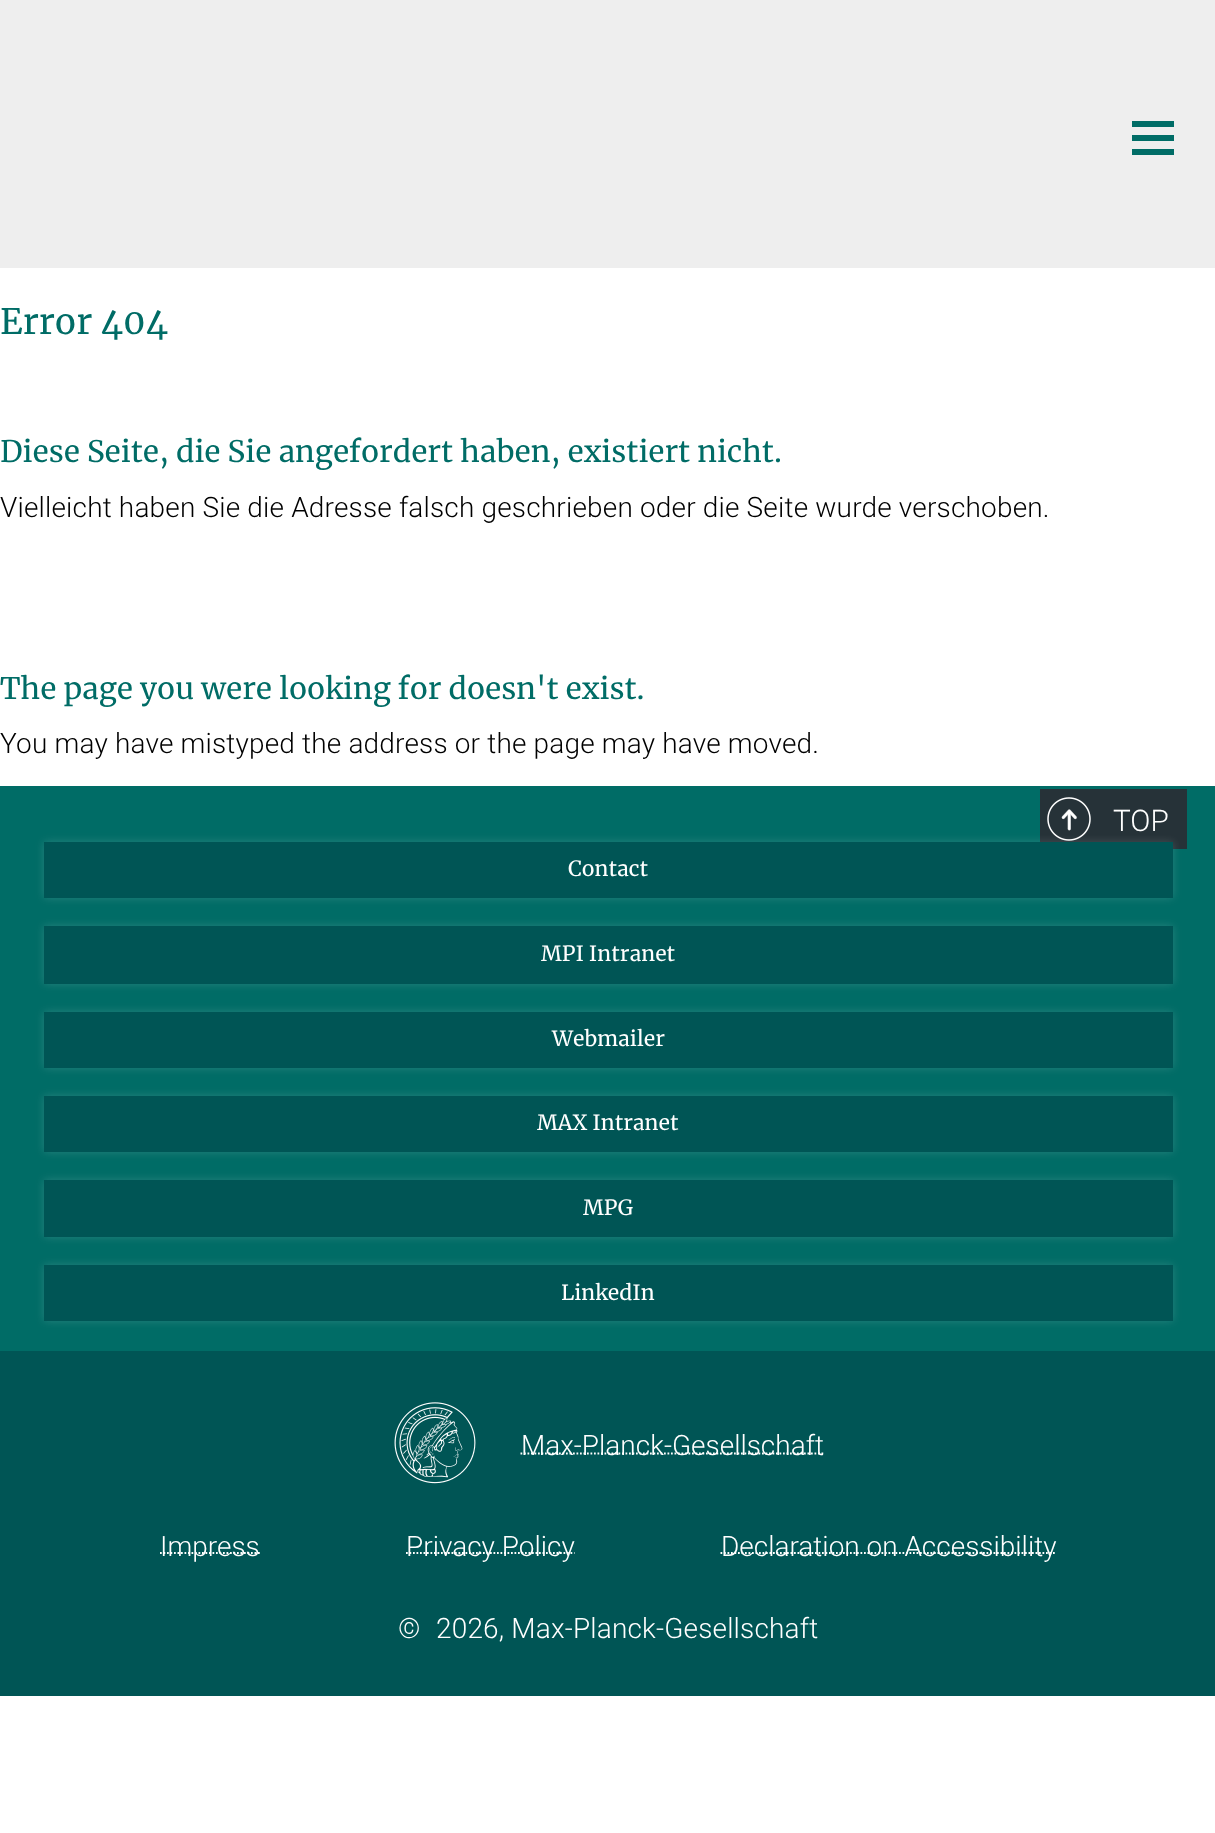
<svg xmlns="http://www.w3.org/2000/svg" width="1215" height="1833">
<style>
.a{font:35px Merriweather;fill:#006c66}
.b{font:29.75px Merriweather;fill:#006c66}
.c{font:300 28px Roboto;letter-spacing:0.18px;fill:#000}
.d{font:300 29.75px Roboto;fill:#fff}
.e{font:21px Merriweather;fill:#fff}
.f{font:300 28px Roboto;fill:#fff}
.g{font:300 28px Roboto;letter-spacing:0.18px;fill:#fff}
</style>
<rect width="100%" height="100%" fill="#fff"/>
<path fill="#eee" d="M0 0h1215v268H0z"/>
<path fill="#006c66" d="M1132 121h42v6H1132z"/>
<path fill="#006c66" d="M1132 135h42v6H1132z"/>
<path fill="#006c66" d="M1132 149h42v6H1132z"/>
<path fill="#006c66" d="M0 786h1215v565H0z"/>
<path fill="#263238" d="M1040 789h147v60H1040z"/>
<image href="1.png" x="1061" y="809" width="16" height="22"/>
<image href="2.png" x="1047" y="797" width="44" height="44"/>
<path fill="#ffffff26" filter="blur(4.5px)" d="M44 842h1129v56H44z"/>
<path fill="#055" d="M44 842h1129v56H44z"/>
<path fill="#ffffff26" filter="blur(4.5px)" d="M44 926h1129v58H44z"/>
<path fill="#055" d="M44 926h1129v58H44z"/>
<path fill="#ffffff26" filter="blur(4.5px)" d="M44 1012h1129v56H44z"/>
<path fill="#055" d="M44 1012h1129v56H44z"/>
<path fill="#ffffff26" filter="blur(4.5px)" d="M44 1096h1129v56H44z"/>
<path fill="#055" d="M44 1096h1129v56H44z"/>
<path fill="#ffffff26" filter="blur(4.5px)" d="M44 1180h1129v57H44z"/>
<path fill="#055" d="M44 1180h1129v57H44z"/>
<path fill="#ffffff26" filter="blur(4.5px)" d="M44 1265h1129v56H44z"/>
<path fill="#055" d="M44 1265h1129v56H44z"/>
<path fill="#055" d="M0 1351h1215v345H0z"/>
<image href="3.png" x="394" y="1402" width="82" height="82"/>
<path fill="none" stroke="#fff" stroke-width="1.8" stroke-dasharray="1.75 1.75" d="M520.5 1453.5h303"/>
<path fill="none" stroke="#fff" stroke-width="1.8" stroke-dasharray="1.75 1.75" d="M160 1553h100"/>
<path fill="none" stroke="#fff" stroke-width="1.8" stroke-dasharray="1.75 1.75" d="M406 1553h168.5"/>
<path fill="none" stroke="#fff" stroke-width="1.8" stroke-dasharray="1.75 1.75" d="M720.5 1553h335.5"/>
<text class="a" x="0" y="334">Error 404</text>
<text class="b" x="0" y="462">Diese Seite, die Sie angefordert haben, existiert nicht.</text>
<text class="c" x="0" y="517">Vielleicht haben Sie die Adresse falsch geschrieben oder die Seite wurde verschoben.</text>
<text class="b" x="0" y="699">The page you were looking for doesn't exist.</text>
<text class="c" x="0" y="753">You may have mistyped the address or the page may have moved.</text>
<text class="d" x="1113" y="831">TOP</text>
<text class="e" x="568" y="876">Contact</text>
<text class="e" x="541" y="961">MPI Intranet</text>
<text class="e" x="552" y="1046">Webmailer</text>
<text class="e" x="537" y="1130">MAX Intranet</text>
<text class="e" x="583" y="1215">MPG</text>
<text class="e" x="561" y="1300">LinkedIn</text>
<text class="f" x="521" y="1455">Max-Planck-Gesellschaft</text>
<text class="f" x="160" y="1556">Impress</text>
<text class="f" x="406" y="1556">Privacy Policy</text>
<text class="f" x="721" y="1556">Declaration on Accessibility</text>
<text class="f" x="398" y="1638">©</text>
<text class="g" x="436" y="1638">2026, Max-Planck-Gesellschaft</text>
</svg>
